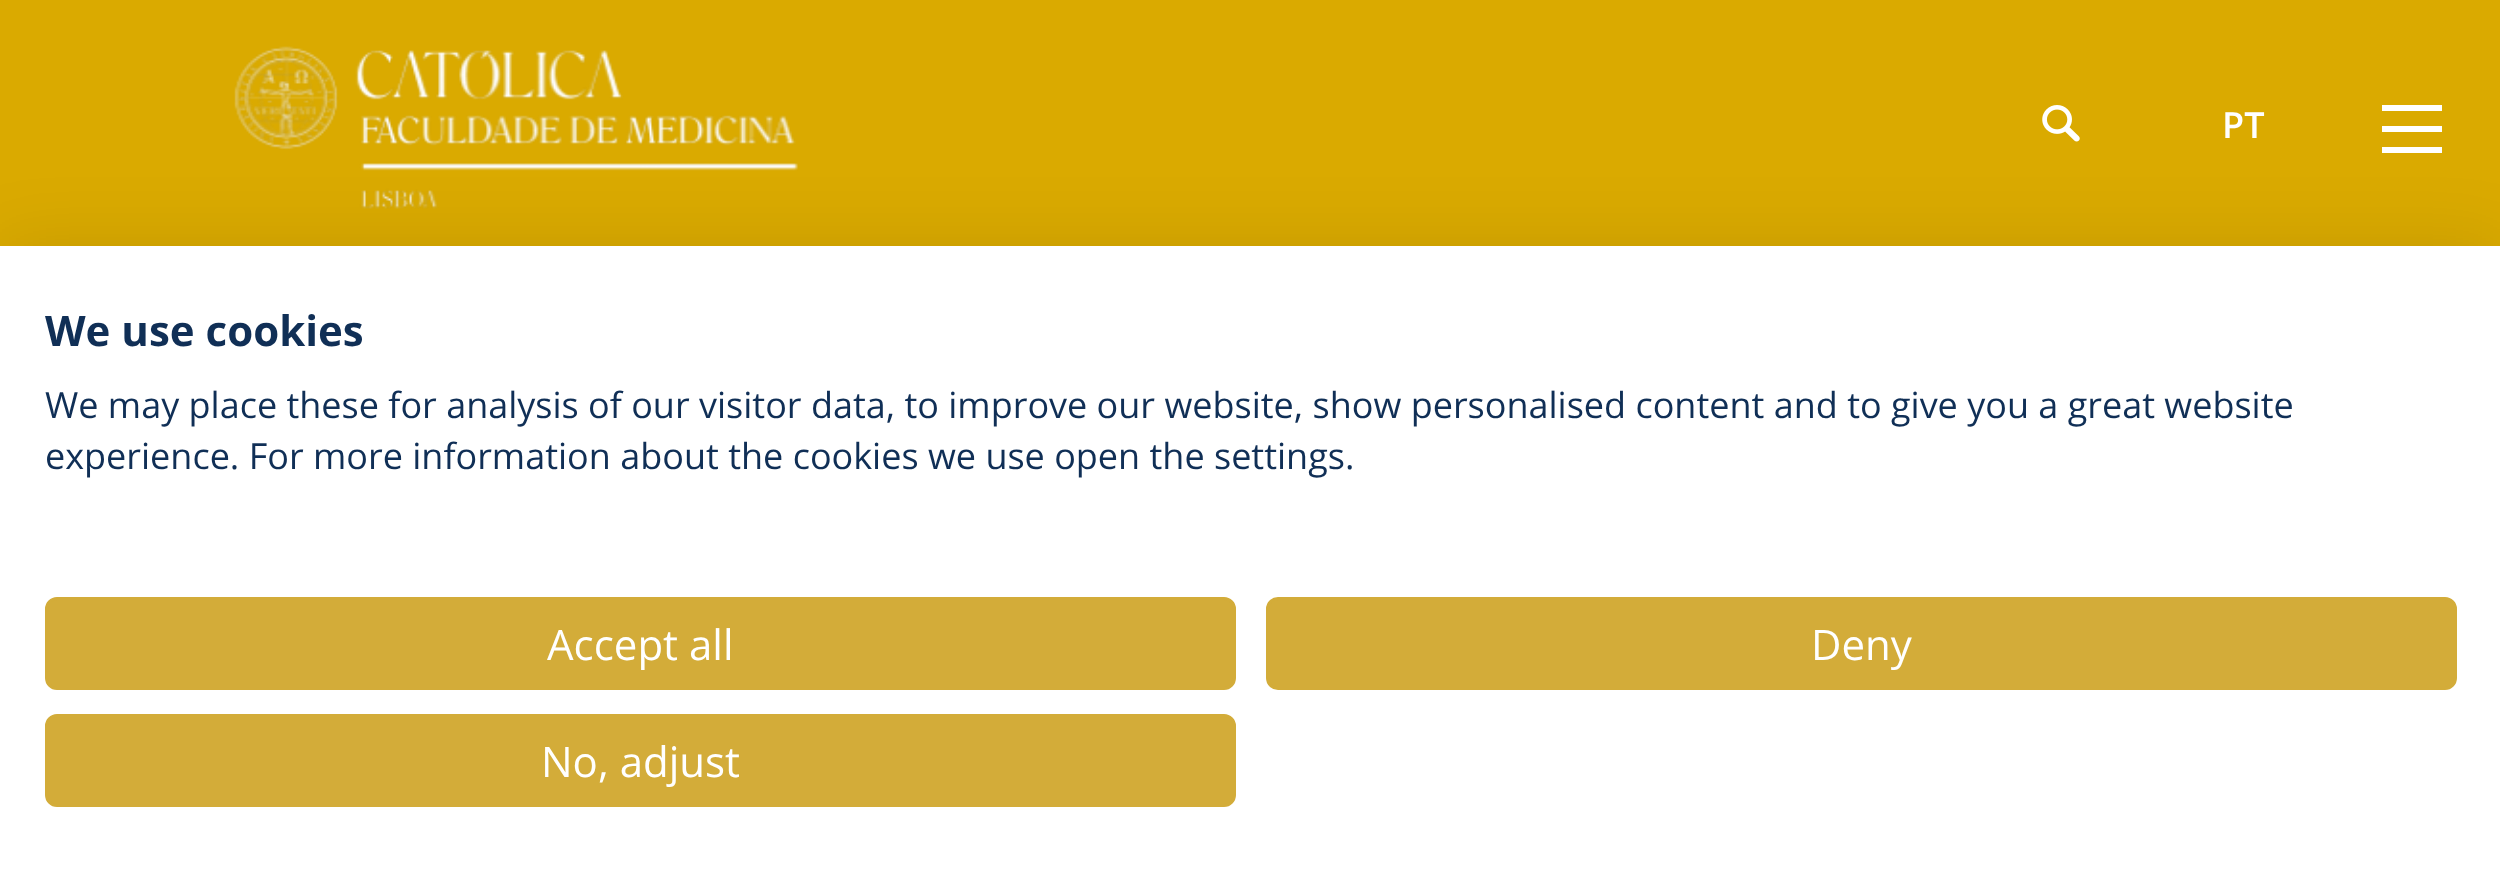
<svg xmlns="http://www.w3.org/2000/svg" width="2500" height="887">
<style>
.a{font:600 36px Open Sans;fill:#fff}
.b{font:bold 42px Open Sans;fill:#102f56}
.c{font:36px Open Sans;fill:#102f56}
.d{font:42px Open Sans;fill:#fff}
</style>
<rect width="100%" height="100%" fill="#daaa00"/>
<image href="1.png" x="234" y="46" width="564" height="163"/>
<image href="2.png" x="2042" y="105" width="38" height="37"/>
<path fill="#fff" d="M2382 105h60v6H2382z"/>
<path fill="#fff" d="M2382 126h60v6H2382z"/>
<path fill="#fff" d="M2382 147h60v6H2382z"/>
<path fill="#0000001a" filter="blur(36px)" d="M0 246h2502v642H0z"/>
<path fill="#fff" d="M0 246h2500v641H0z"/>
<rect fill="#d3ac39" stroke="#d3ac39" stroke-width="3" x="46.5" y="598.5" width="1188" height="90" rx="10.5"/>
<rect fill="#d3ac39" stroke="#d3ac39" stroke-width="3" x="1267.5" y="598.5" width="1188" height="90" rx="10.5"/>
<rect fill="#d3ac39" stroke="#d3ac39" stroke-width="3" x="46.5" y="715.5" width="1188" height="90" rx="10.5"/>
<text class="a" x="2222" y="138">PT</text>
<text class="b" x="45" y="346">We use cookies</text>
<text class="c" x="45" y="418">We may place these for analysis of our visitor data, to improve our website, show personalised content and to give you a great website</text>
<text class="c" x="45" y="469">experience. For more information about the cookies we use open the settings.</text>
<text class="d" x="547" y="660">Accept all</text>
<text class="d" x="1811" y="660">Deny</text>
<text class="d" x="541" y="777">No, adjust</text>
</svg>
